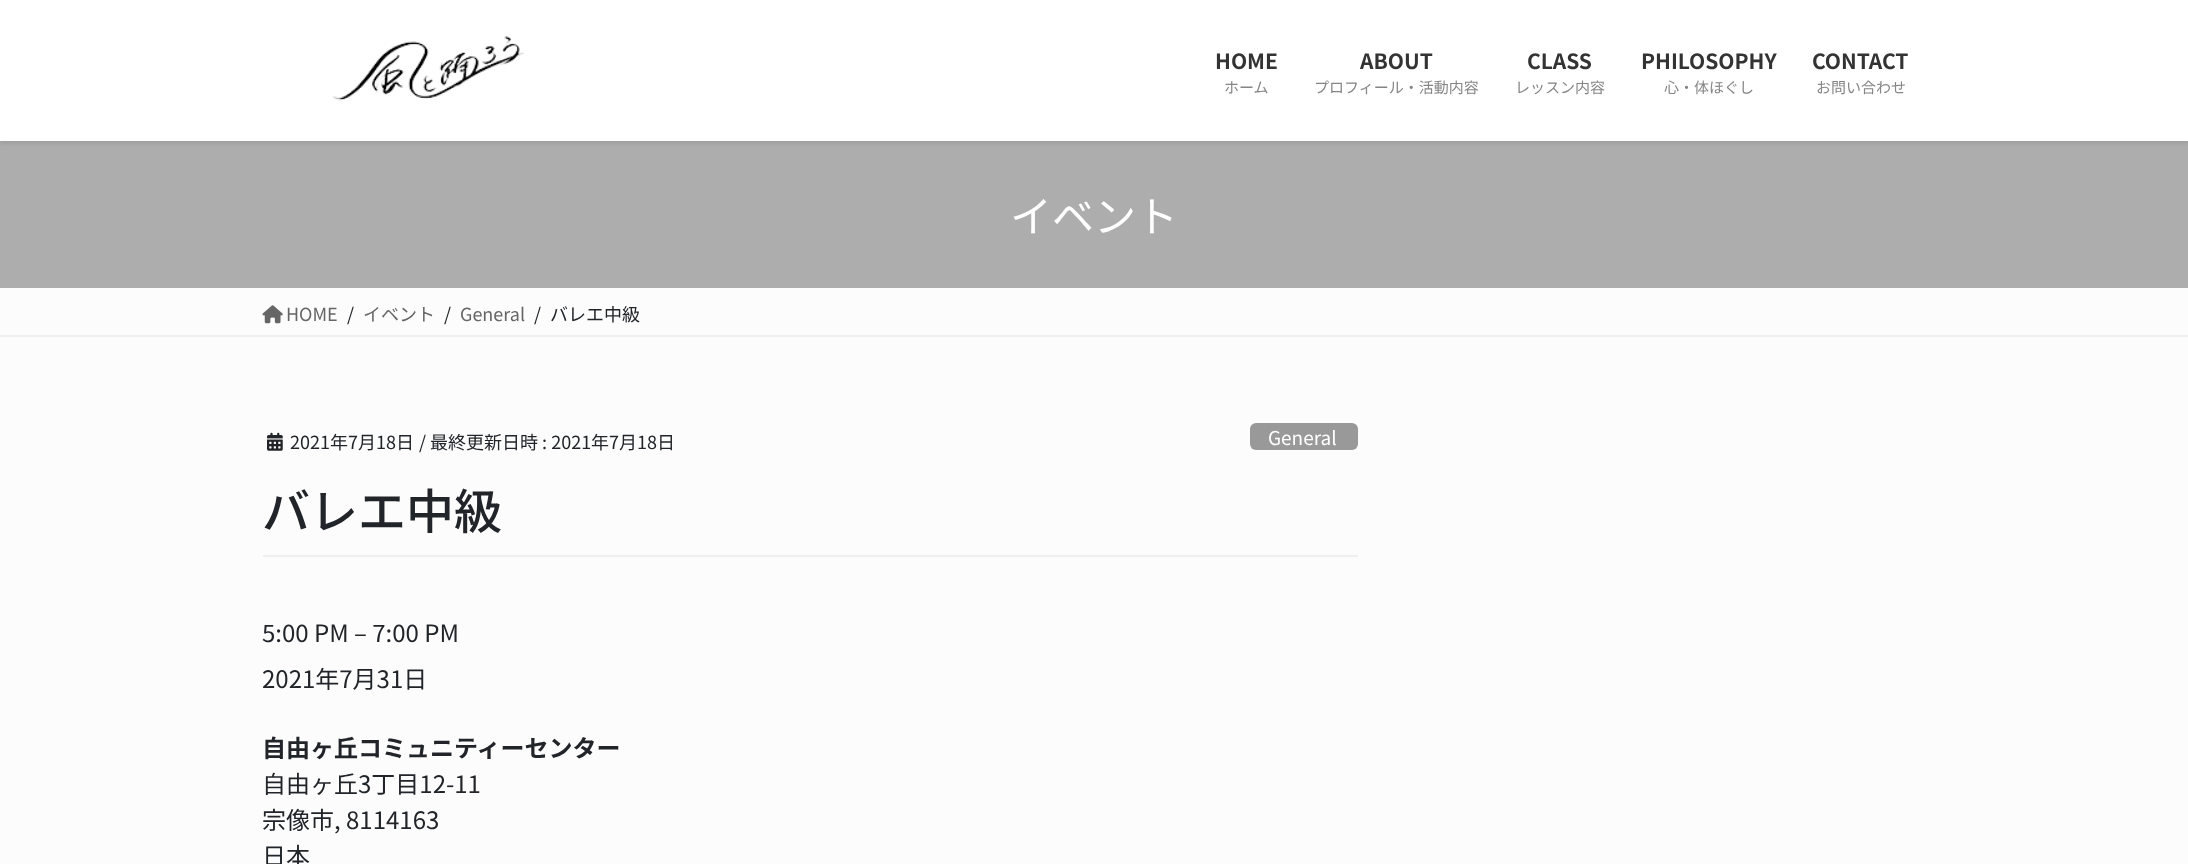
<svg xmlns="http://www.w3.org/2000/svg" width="2188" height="864">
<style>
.a{font:bold 21px Noto Sans JP;fill:#333}
.b{font:15px Noto Sans JP;fill:#858585}
.c{font:42px Noto Sans JP;fill:#fff}
.d{font:18px Noto Sans JP;fill:#666}
.e{font:18px Noto Sans JP;fill:#212529}
.f{font:19px Noto Sans JP;fill:#fff}
.g{font:500 48px Noto Sans JP;fill:#212529}
.h{font:24px Noto Sans JP;fill:#212529}
.i{font:bold 24px Noto Sans JP;fill:#212529}
</style>
<rect width="100%" height="100%" fill="#fcfcfc"/>
<path fill="#adadad" d="M0 141h2188v147H0z"/>
<path fill="#0000001a" filter="blur(2px)" d="M0 2h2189v141H0z"/>
<path fill="#fff" d="M0 0h2188v141H0z"/>
<image href="1.png" x="332" y="36" width="192" height="65"/>
<path fill="#efefef" d="M0 335h2188v2H0z"/>
<image href="2.png" x="262" y="305" width="21" height="19"/>
<path fill="#efefef" d="M263 555h1095v2H263z"/>
<image href="3.png" x="267" y="432" width="16" height="19"/>
<rect fill="#999" x="1250" y="423" width="108" height="27" rx="6"/>
<text class="a" x="1215" y="69">HOME</text>
<text class="b" x="1224" y="93">ホーム</text>
<text class="a" x="1360" y="69">ABOUT</text>
<text class="b" x="1314" y="93">プロフィール・活動内容</text>
<text class="a" x="1527" y="69">CLASS</text>
<text class="b" x="1515" y="93">レッスン内容</text>
<text class="a" x="1641" y="69">PHILOSOPHY</text>
<text class="b" x="1664" y="93">心・体ほぐし</text>
<text class="a" x="1812" y="69">CONTACT</text>
<text class="b" x="1816" y="93">お問い合わせ</text>
<text class="c" x="1010" y="232">イベント</text>
<text class="d" x="286" y="321">HOME</text>
<text class="e" x="347" y="321">/</text>
<text class="d" x="363" y="321">イベント</text>
<text class="e" x="444" y="321">/</text>
<text class="d" x="460" y="321">General</text>
<text class="e" x="534" y="321">/</text>
<text class="e" x="550" y="321">バレエ中級</text>
<text class="e" x="290" y="449">2021年7月18日</text>
<text class="e" x="419" y="449">/ 最終更新日時 : 2021年7月18日</text>
<text class="f" x="1268" y="445">General</text>
<text class="g" x="262" y="529">バレエ中級</text>
<text class="h" x="262" y="642">5:00 PM – 7:00 PM</text>
<text class="h" x="262" y="688">2021年7月31日</text>
<text class="i" x="262" y="757">自由ヶ丘コミュニティーセンター</text>
<text class="h" x="262" y="793">自由ヶ丘3丁目12-11</text>
<text class="h" x="262" y="829">宗像市, 8114163</text>
<text class="h" x="262" y="865">日本</text>
</svg>
